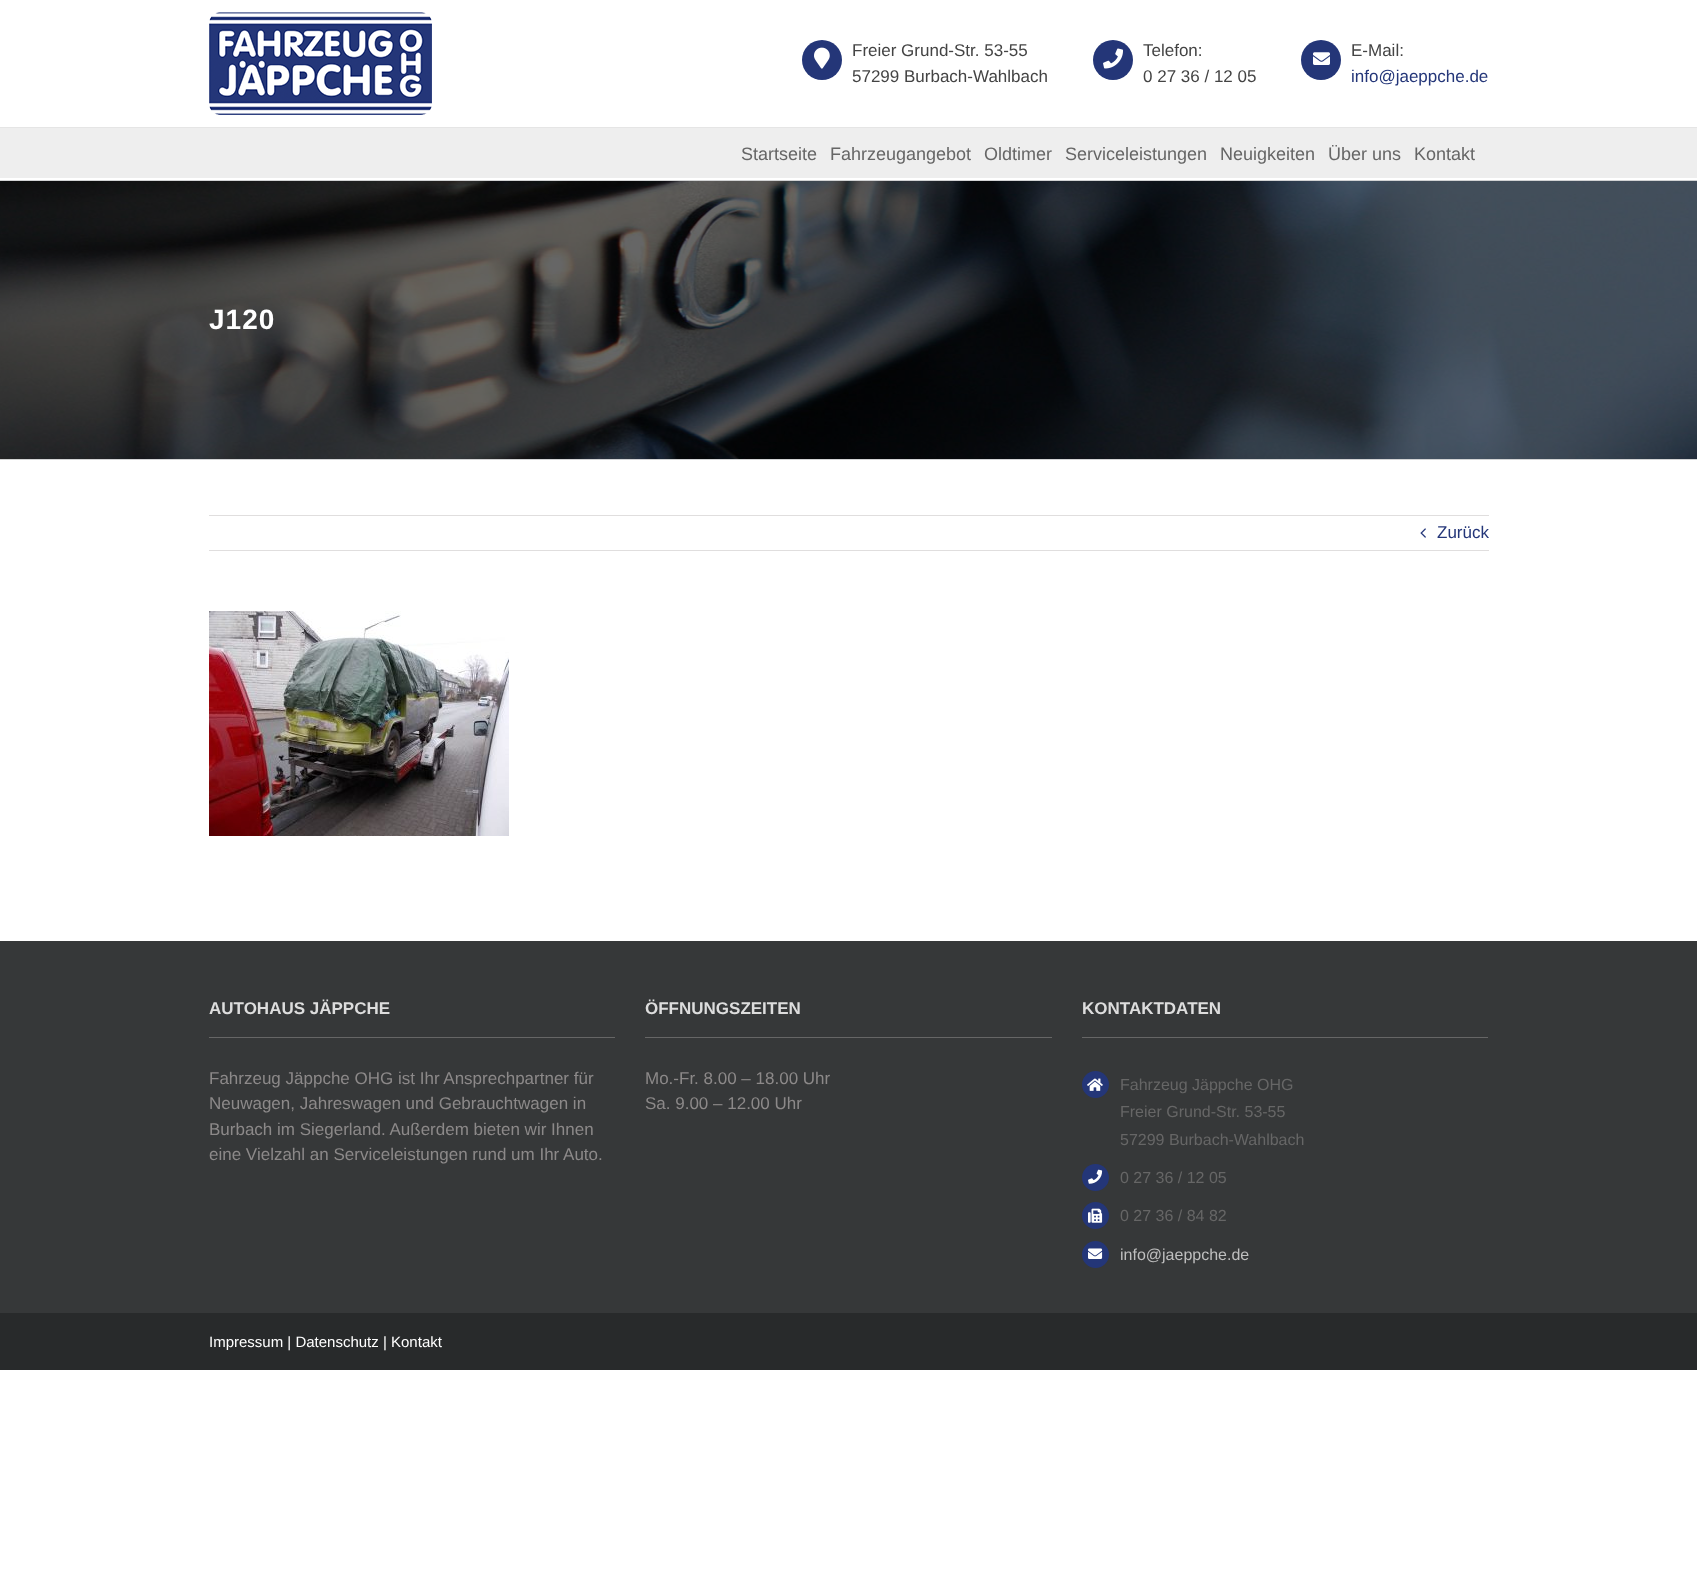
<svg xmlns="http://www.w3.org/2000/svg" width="1697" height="1584">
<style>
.a{font:17px Liberation Sans;fill:#444}
.b{font:17px Liberation Sans;fill:#243679}
.c{font:18px Liberation Sans;fill:#666}
.d{font:bold 28px Liberation Sans;letter-spacing:1px;fill:#fff}
.e{font:bold 17px Liberation Sans;fill:#ddd}
.f{font:17px Liberation Sans;fill:#8c8989}
.g{font:16px Liberation Sans;fill:#666}
.h{font:16px Liberation Sans;fill:#bfbfbf}
.i{font:15px Liberation Sans;fill:#fff}
</style>
<rect width="100%" height="100%" fill="#fff"/>
<path fill="#e5e5e5" d="M0 127h1697v1H0z"/>
<image href="1.png" x="209" y="12" width="223" height="103"/>
<circle fill="#243678" cx="822" cy="60" r="20"/>
<image href="2.png" x="814" y="47" width="16" height="22"/>
<circle fill="#243678" cx="1113" cy="60" r="20"/>
<image href="3.png" x="1103" y="48" width="20" height="21"/>
<circle fill="#243678" cx="1321" cy="60" r="20"/>
<image href="4.png" x="1313" y="52" width="17" height="13"/>
<path fill="#eee" d="M0 128h1697v50H0z"/>
<image href="5.png" x="0" y="181" width="1697" height="278"/>
<path fill="#d2d3d4" d="M0 180h1697v1H0z"/>
<path fill="#d2d3d4" d="M0 459h1697v1H0z"/>
<path fill="#e0dede" d="M209 515h1280v1H209z"/>
<path fill="#e0dede" d="M209 550h1280v1H209z"/>
<image href="6.png" x="1420" y="528" width="6" height="10"/>
<image href="7.png" x="209" y="611" width="300" height="225"/>
<path fill="#363839" d="M0 941h1697v372H0z"/>
<path fill="#666" d="M209 1037h406v1H209z"/>
<path fill="#666" d="M645 1037h407v1H645z"/>
<path fill="#666" d="M1082 1037h406v1H1082z"/>
<circle fill="#243678" cx="1095.5" cy="1084.5" r="13.5"/>
<image href="8.png" x="1087" y="1078" width="16" height="13"/>
<circle fill="#243678" cx="1095.5" cy="1177.5" r="13.5"/>
<image href="9.png" x="1088" y="1169" width="15" height="15"/>
<circle fill="#243678" cx="1095.5" cy="1215.5" r="13.5"/>
<image href="10.png" x="1088" y="1208" width="15" height="15"/>
<circle fill="#243678" cx="1095.5" cy="1254.5" r="13.5"/>
<image href="11.png" x="1088" y="1248" width="15" height="11"/>
<path fill="#282a2b" d="M0 1313h1697v57H0z"/>
<text class="a" x="852" y="56">Freier Grund-Str. 53-55</text>
<text class="a" x="852" y="82">57299 Burbach-Wahlbach</text>
<text class="a" x="1143" y="56">Telefon:</text>
<text class="a" x="1143" y="82">0 27 36 / 12 05</text>
<text class="a" x="1351" y="56">E-Mail:</text>
<text class="b" x="1351" y="82">info@jaeppche.de</text>
<text class="c" x="741" y="160">Startseite</text>
<text class="c" x="830" y="160">Fahrzeugangebot</text>
<text class="c" x="984" y="160">Oldtimer</text>
<text class="c" x="1065" y="160">Serviceleistungen</text>
<text class="c" x="1220" y="160">Neuigkeiten</text>
<text class="c" x="1328" y="160">Über uns</text>
<text class="c" x="1414" y="160">Kontakt</text>
<text class="d" x="209" y="329">J120</text>
<text class="b" x="1437" y="538">Zurück</text>
<text class="e" x="209" y="1014">AUTOHAUS JÄPPCHE</text>
<text class="f" x="209" y="1084">Fahrzeug Jäppche OHG ist Ihr Ansprechpartner für</text>
<text class="f" x="209" y="1109">Neuwagen, Jahreswagen und Gebrauchtwagen in</text>
<text class="f" x="209" y="1135">Burbach im Siegerland. Außerdem bieten wir Ihnen</text>
<text class="f" x="209" y="1160">eine Vielzahl an Serviceleistungen rund um Ihr Auto.</text>
<text class="e" x="645" y="1014">ÖFFNUNGSZEITEN</text>
<text class="f" x="645" y="1084">Mo.-Fr. 8.00 – 18.00 Uhr</text>
<text class="f" x="645" y="1109">Sa. 9.00 – 12.00 Uhr</text>
<text class="e" x="1082" y="1014">KONTAKTDATEN</text>
<text class="g" x="1120" y="1090">Fahrzeug Jäppche OHG</text>
<text class="g" x="1120" y="1117">Freier Grund-Str. 53-55</text>
<text class="g" x="1120" y="1145">57299 Burbach-Wahlbach</text>
<text class="g" x="1120" y="1183">0 27 36 / 12 05</text>
<text class="g" x="1120" y="1221">0 27 36 / 84 82</text>
<text class="h" x="1120" y="1260">info@jaeppche.de</text>
<text class="i" x="209" y="1347">Impressum | Datenschutz | Kontakt</text>
</svg>
